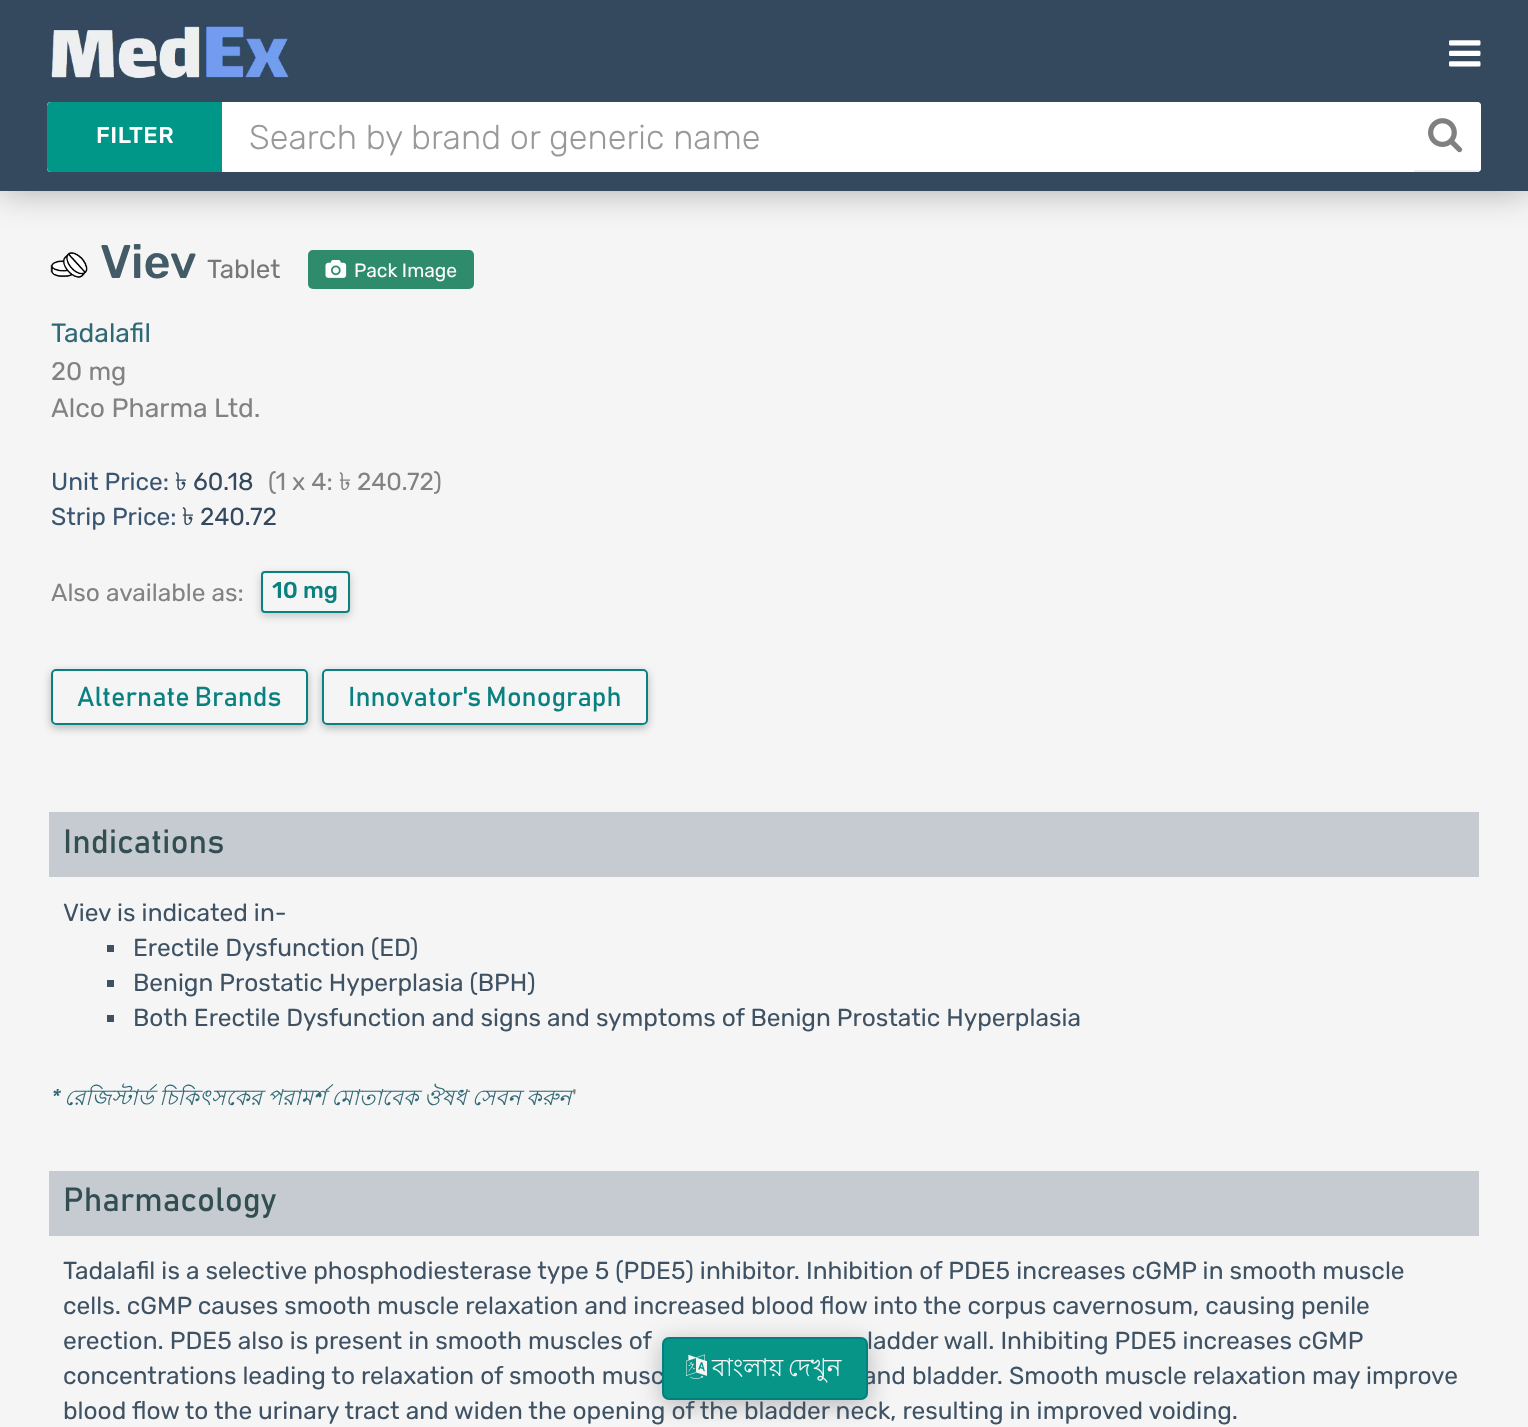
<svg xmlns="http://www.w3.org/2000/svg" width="1528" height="1427">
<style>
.a{font:300 23px Rubik;letter-spacing:0.5px;fill:#fff}
.b{font:300 34.25px 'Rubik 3';fill:#999}
.c{font:300 47px Rubik;fill:#435b66}
.d{font:300 26px 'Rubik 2';fill:#777}
.e{font:300 19.25px 'Rubik 2';fill:#fff}
.f{font:300 26.5px 'Rubik 2';fill:#306976}
.g{font:300 25.5px 'Rubik 2';fill:#828282}
.h{font:300 26.5px 'Rubik 2';fill:#828282}
.i{font:300 24.5px 'Rubik 2';fill:#3a5571}
.j{font:24.5px Lohit Bengali;fill:#34495e}
.k{font:300 24.5px 'Rubik 2';fill:#34495e}
.l{font:300 24.5px 'Rubik 2';fill:#828282}
.m{font:24.5px Lohit Bengali;fill:#828282}
.n{font:300 23px Rubik;fill:#0a8181}
.o{font:27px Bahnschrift;fill:#0a8181}
.p{font:33.25px Bahnschrift;fill:#334e52}
.q{font:300 24.5px 'Rubik 2';fill:#3f5264}
.r{font:italic 300 22.05px Rubik;fill:#306976}
.s{font:italic 22.05px Lohit Bengali;fill:#306976}
.t{font:300 22.05px 'Rubik 2';fill:#828282}
.u{font:24.5px Lohit Bengali;fill:#f5f5f5}
</style>
<defs>
<clipPath id="clip1"><path d="M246 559h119v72h-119zm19 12h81c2 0 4 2 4 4v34c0 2-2 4-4 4h-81c-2 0-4-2-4-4v-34c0-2 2-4 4-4z" clip-rule="evenodd"/></clipPath>
<clipPath id="clip2"><path d="M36 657h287v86h-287zm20 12h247c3 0 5 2 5 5v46c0 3-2 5-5 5h-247c-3 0-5-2-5-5v-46c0-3 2-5 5-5z" clip-rule="evenodd"/></clipPath>
<clipPath id="clip3"><path d="M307 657h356v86h-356zm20 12h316c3 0 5 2 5 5v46c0 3-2 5-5 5h-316c-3 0-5-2-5-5v-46c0-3 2-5 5-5z" clip-rule="evenodd"/></clipPath>
</defs>
<rect width="100%" height="100%" fill="#f5f5f5"/>
<path fill="#0000004d" filter="blur(17.5px)" d="M0 0h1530v191H0z"/>
<path fill="#34495e" d="M0 0h1528v191H0z"/>
<image href="1.png" x="50" y="24" width="241" height="55"/>
<image href="2.png" x="1449" y="40" width="32" height="27"/>
<rect fill="#fff" x="47" y="102" width="1434" height="70" rx="4"/>
<path fill="#009688" d="M51 102h171v70h-171c-2 0-4-2-4-4v-62c0-2 2-4 4-4z"/>
<path fill="#fff" d="M1414 102h63c2 0 4 2 4 4v62c0 2-2 4-4 4h-63z"/>
<path fill="#eee" d="M1414 170h65v2H1414z"/>
<image href="3.png" x="1428" y="118" width="35" height="35"/>
<image href="4.png" x="50" y="252" width="38" height="26"/>
<rect fill="#2e8c6d" x="308" y="250" width="166" height="39" rx="5"/>
<image href="5.png" x="325" y="260" width="22" height="18"/>
<g clip-path="url(#clip1)">
<rect fill="#00000033" filter="blur(4.5px)" x="261" y="574" width="89" height="42" rx="4"/>
</g>
<rect fill="none" stroke="#0a8181" stroke-width="2" x="262" y="572" width="87" height="40" rx="3"/>
<g clip-path="url(#clip2)">
<rect fill="#00000042" filter="blur(4.5px)" x="51" y="672" width="257" height="56" rx="5"/>
</g>
<rect fill="none" stroke="#0a8181" stroke-width="2" x="52" y="670" width="255" height="54" rx="4"/>
<g clip-path="url(#clip3)">
<rect fill="#00000042" filter="blur(4.5px)" x="322" y="672" width="326" height="56" rx="5"/>
</g>
<rect fill="none" stroke="#0a8181" stroke-width="2" x="323" y="670" width="324" height="54" rx="4"/>
<path fill="#c5cbd0" d="M49 812h1430v65H49z"/>
<path fill="#3f5264" d="M107 945h7v7H107z"/>
<path fill="#3f5264" d="M107 980h7v7H107z"/>
<path fill="#3f5264" d="M107 1015h7v7H107z"/>
<path fill="#c5cbd0" d="M49 1171h1430v65H49z"/>
<rect fill="#00000040" filter="blur(11.5px)" x="662" y="1342" width="206" height="63" rx="7"/>
<text class="a" x="96" y="143">FILTER</text>
<text class="b" x="249" y="149">Search by brand or generic name</text>
<text class="c" x="100" y="278">Viev</text>
<text class="d" x="207" y="278">Tablet</text>
<text class="e" x="354" y="277">Pack Image</text>
<text class="f" x="51" y="342">Tadalafil</text>
<text class="g" x="51" y="380">20 mg</text>
<text class="h" x="51" y="417">Alco Pharma Ltd.</text>
<text class="i" x="51" y="490">Unit Price:</text>
<text class="j" x="175" y="490">৳</text>
<text class="k" x="193" y="490">60.18</text>
<text class="l" x="268" y="490">(1 x 4:</text>
<text class="m" x="339" y="490">৳</text>
<text class="l" x="357" y="490">240.72)</text>
<text class="i" x="51" y="525">Strip Price:</text>
<text class="j" x="182" y="525">৳</text>
<text class="k" x="200" y="525">240.72</text>
<text class="l" x="51" y="601">Also available as:</text>
<text class="n" x="272" y="598">10 mg</text>
<text class="o" x="77" y="706">Alternate Brands</text>
<text class="o" x="348" y="706">Innovator's Monograph</text>
<text class="p" x="63" y="853">Indications</text>
<text class="q" x="63" y="921">Viev is indicated in-</text>
<text class="q" x="133" y="956">Erectile Dysfunction (ED)</text>
<text class="q" x="133" y="991">Benign Prostatic Hyperplasia (BPH)</text>
<text class="q" x="133" y="1026">Both Erectile Dysfunction and signs and symptoms of Benign Prostatic Hyperplasia</text>
<text class="r" x="49" y="1105">*</text>
<text class="s" x="64" y="1105" word-spacing="-0.75">রেজিস্টার্ড চিকিৎসকের পরামর্শ মোতাবেক ঔষধ সেবন করুন</text>
<text class="t" x="572" y="1105">'</text>
<text class="p" x="63" y="1211">Pharmacology</text>
<text class="q" x="63" y="1279">Tadalafil is a selective phosphodiesterase type 5 (PDE5) inhibitor. Inhibition of PDE5 increases cGMP in smooth muscle</text>
<text class="q" x="63" y="1314">cells. cGMP causes smooth muscle relaxation and increased blood flow into the corpus cavernosum, causing penile</text>
<text class="q" x="63" y="1349">erection. PDE5 also is present in smooth muscles of</text>
<text class="q" x="867" y="1349">ladder wall. Inhibiting PDE5 increases cGMP</text>
<text class="q" x="63" y="1384">concentrations leading to relaxation of smooth musc</text>
<text class="q" x="863" y="1384">and bladder. Smooth muscle relaxation may improve</text>
<text class="q" x="63" y="1419">blood flow to the urinary tract and widen the opening of the bladder neck, resulting in improved voiding.</text>
<rect fill="#069587" stroke="#008080" stroke-width="2" x="663" y="1338" width="204" height="61" rx="6"/>
<image href="6.png" x="686" y="1354" width="21" height="25"/>
<text class="u" x="712" y="1376" word-spacing="-2">বাংলায় দেখুন</text>
</svg>
